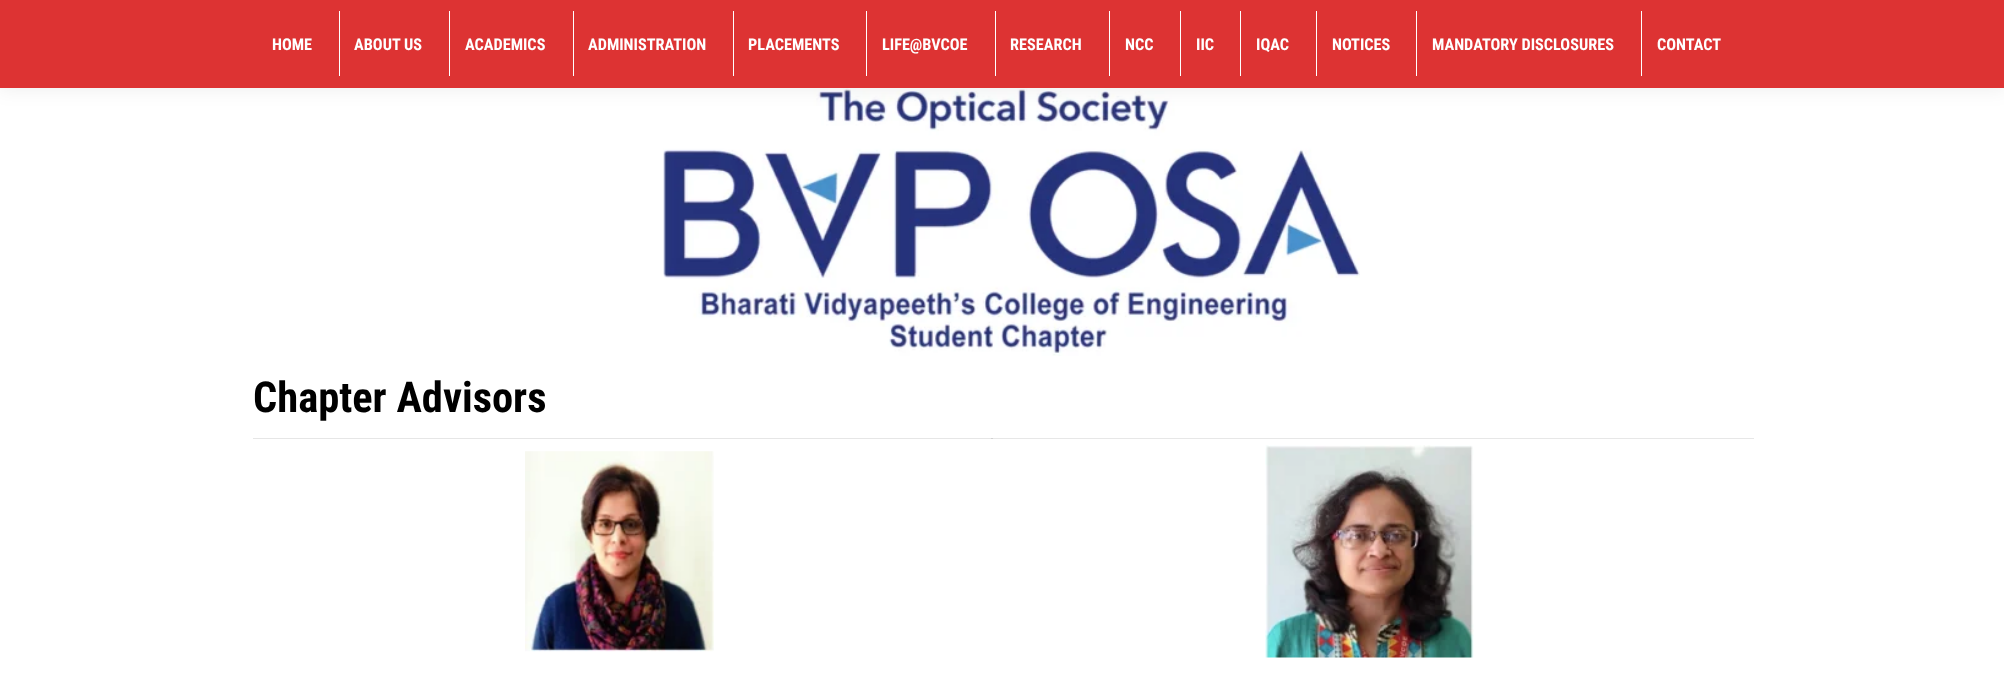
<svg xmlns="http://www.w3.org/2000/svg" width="2004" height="681">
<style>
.a{font:bold 16.25px Roboto Condensed;fill:#fff}
.b{font:bold 42.5px Roboto Condensed;fill:#000}
</style>
<rect width="100%" height="100%" fill="#fff"/>
<image href="1.png" x="663" y="88" width="697" height="268"/>
<path fill="#00000012" filter="blur(9.5px)" d="M-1 -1h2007v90H-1z"/>
<path fill="#d33" d="M0 0h2004v88H0z"/>
<path fill="#fff" d="M339 11h1v65H339z"/>
<path fill="#fff" d="M449 11h1v65H449z"/>
<path fill="#fff" d="M573 11h1v65H573z"/>
<path fill="#fff" d="M733 11h1v65H733z"/>
<path fill="#fff" d="M866 11h1v65H866z"/>
<path fill="#fff" d="M995 11h1v65H995z"/>
<path fill="#fff" d="M1109 11h1v65H1109z"/>
<path fill="#fff" d="M1180 11h1v65H1180z"/>
<path fill="#fff" d="M1240 11h1v65H1240z"/>
<path fill="#fff" d="M1316 11h1v65H1316z"/>
<path fill="#fff" d="M1416 11h1v65H1416z"/>
<path fill="#fff" d="M1641 11h1v65H1641z"/>
<path fill="#e7e7e7" d="M991 438h763v1H991z"/>
<path fill="#3333331f" d="M253 438h740v1H253z"/>
<image href="2.png" x="525" y="451" width="189" height="201"/>
<image href="3.png" x="1265" y="445" width="209" height="213"/>
<text class="a" x="272" y="50">HOME</text>
<text class="a" x="354" y="50">ABOUT US</text>
<text class="a" x="465" y="50">ACADEMICS</text>
<text class="a" x="588" y="50">ADMINISTRATION</text>
<text class="a" x="748" y="50">PLACEMENTS</text>
<text class="a" x="882" y="50">LIFE@BVCOE</text>
<text class="a" x="1010" y="50">RESEARCH</text>
<text class="a" x="1125" y="50">NCC</text>
<text class="a" x="1196" y="50">IIC</text>
<text class="a" x="1256" y="50">IQAC</text>
<text class="a" x="1332" y="50">NOTICES</text>
<text class="a" x="1432" y="50">MANDATORY DISCLOSURES</text>
<text class="a" x="1657" y="50">CONTACT</text>
<text class="b" x="253" y="412">Chapter Advisors</text>
</svg>
